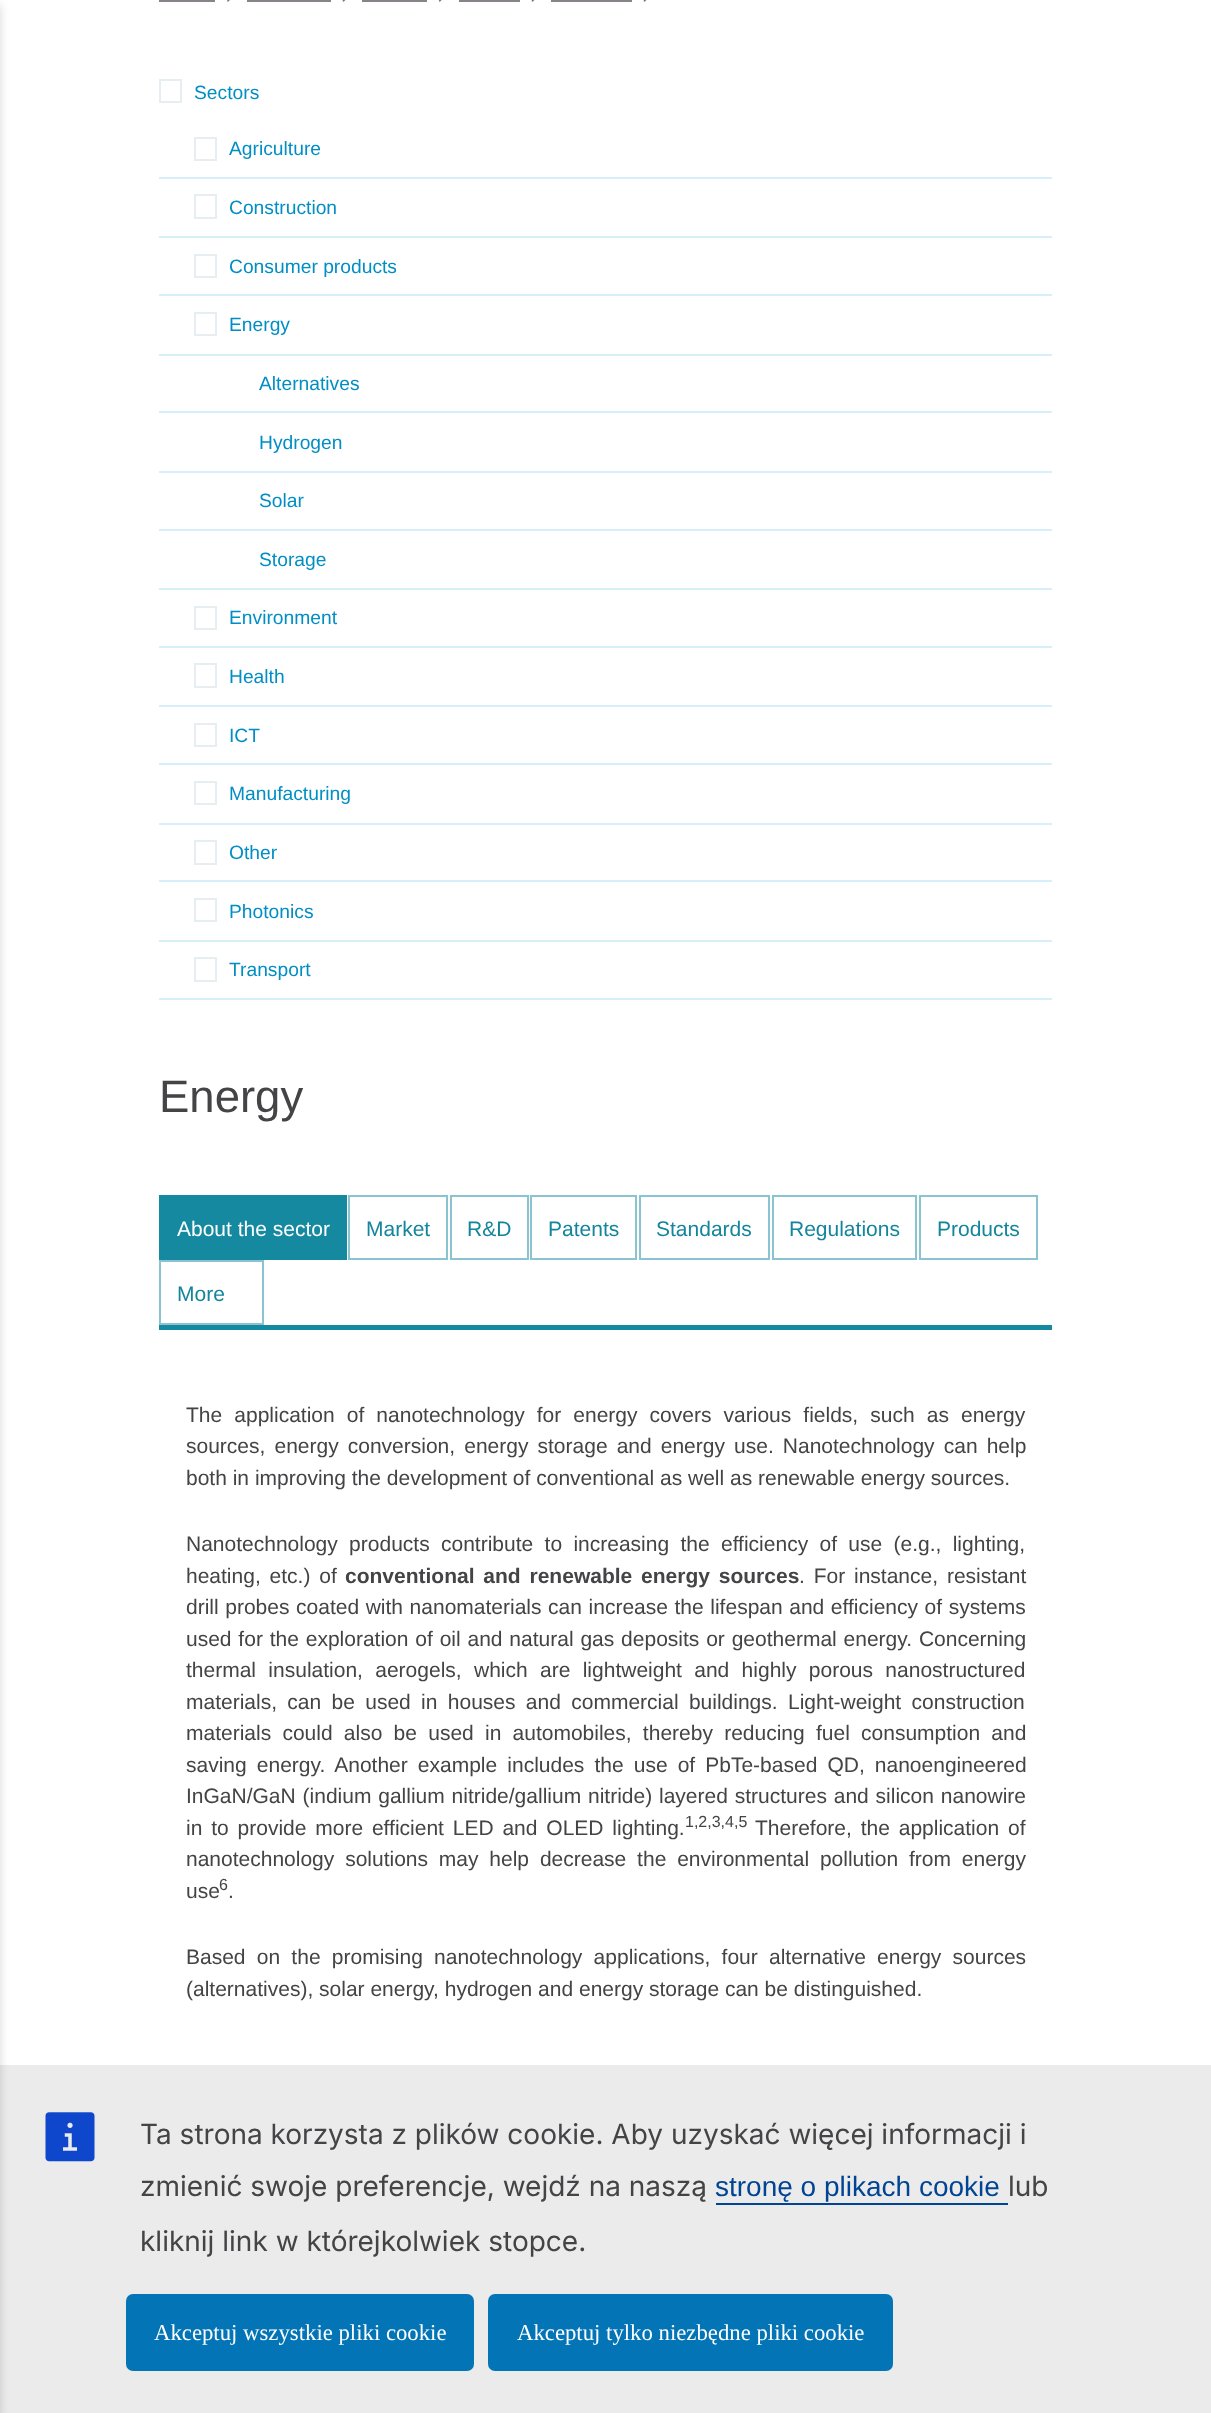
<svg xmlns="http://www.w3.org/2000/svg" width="1211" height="2413">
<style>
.a{font:19.25px Liberation Sans;fill:#018ec4}
.b{font:45.5px Liberation Sans;fill:#444345}
.c{font:21px Liberation Sans;fill:#fff}
.d{font:21px Liberation Sans;fill:#13859c}
.e{font:21px Liberation Sans;fill:#444345}
.f{font:bold 21px Liberation Sans;fill:#444345}
.g{font:16px Liberation Sans;fill:#444345}
.h{font:28px Inter;fill:#444345}
.i{font:28px Liberation Sans;fill:#004494}
.j{font:22.75px Liberation Serif;fill:#fff}
</style>
<rect width="100%" height="100%" fill="#fff"/>
<path fill="#ebebeb" d="M0 2065h1211v348H0z"/>
<path fill="#00000029" filter="blur(5px)" d="M-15 5h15v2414H-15z"/>
<path fill="#878389" d="M159 0h56v2H159z"/>
<image href="1.png" x="227" y="0" width="3" height="2"/>
<path fill="#878389" d="M247 0h84v2H247z"/>
<image href="2.png" x="342" y="0" width="4" height="2"/>
<path fill="#878389" d="M362 0h65v2H362z"/>
<image href="3.png" x="438" y="0" width="4" height="2"/>
<path fill="#878389" d="M459 0h61v2H459z"/>
<image href="2.png" x="531" y="0" width="4" height="2"/>
<path fill="#878389" d="M551 0h81v2H551z"/>
<image href="2.png" x="643" y="0" width="4" height="2"/>
<path fill="none" stroke="#e6eef2" stroke-width="2" d="M160 80h21v22H160z"/>
<path fill="#d7effa" d="M159 177h893v2H159z"/>
<path fill="none" stroke="#e6eef2" stroke-width="2" d="M195 138h21v22H195z"/>
<path fill="#d7effa" d="M159 236h893v2H159z"/>
<path fill="none" stroke="#e6eef2" stroke-width="2" d="M195 195h21v23H195z"/>
<path fill="#d7effa" d="M159 294h893v2H159z"/>
<path fill="none" stroke="#e6eef2" stroke-width="2" d="M195 255h21v22H195z"/>
<path fill="#d7effa" d="M159 354h893v2H159z"/>
<path fill="none" stroke="#e6eef2" stroke-width="2" d="M195 313h21v22H195z"/>
<path fill="#d7effa" d="M159 411h893v2H159z"/>
<path fill="#d7effa" d="M159 471h893v2H159z"/>
<path fill="#d7effa" d="M159 529h893v2H159z"/>
<path fill="#d7effa" d="M159 588h893v2H159z"/>
<path fill="#d7effa" d="M159 646h893v2H159z"/>
<path fill="none" stroke="#e6eef2" stroke-width="2" d="M195 607h21v22H195z"/>
<path fill="#d7effa" d="M159 705h893v2H159z"/>
<path fill="none" stroke="#e6eef2" stroke-width="2" d="M195 664h21v23H195z"/>
<path fill="#d7effa" d="M159 763h893v2H159z"/>
<path fill="none" stroke="#e6eef2" stroke-width="2" d="M195 724h21v22H195z"/>
<path fill="#d7effa" d="M159 823h893v2H159z"/>
<path fill="none" stroke="#e6eef2" stroke-width="2" d="M195 782h21v22H195z"/>
<path fill="#d7effa" d="M159 880h893v2H159z"/>
<path fill="none" stroke="#e6eef2" stroke-width="2" d="M195 841h21v23H195z"/>
<path fill="#d7effa" d="M159 940h893v2H159z"/>
<path fill="none" stroke="#e6eef2" stroke-width="2" d="M195 899h21v22H195z"/>
<path fill="#d7effa" d="M159 998h893v2H159z"/>
<path fill="none" stroke="#e6eef2" stroke-width="2" d="M195 958h21v23H195z"/>
<path fill="#1489a0" d="M159 1325h893v5H159z"/>
<path fill="#1489a0" d="M159 1195h188v65H159z"/>
<path fill="none" stroke="#8ac4d0" stroke-width="2" d="M349 1196h98v63H349z"/>
<path fill="none" stroke="#8ac4d0" stroke-width="2" d="M451 1196h77v63H451z"/>
<path fill="none" stroke="#8ac4d0" stroke-width="2" d="M531 1196h105v63H531z"/>
<path fill="none" stroke="#8ac4d0" stroke-width="2" d="M640 1196h129v63H640z"/>
<path fill="none" stroke="#8ac4d0" stroke-width="2" d="M773 1196h143v63H773z"/>
<path fill="none" stroke="#8ac4d0" stroke-width="2" d="M920 1196h117v63H920z"/>
<path fill="none" stroke="#8ac4d0" stroke-width="2" d="M160 1261h103v63H160z"/>
<image href="4.png" x="45" y="2112" width="50" height="50"/>
<path fill="#004494" d="M716 2203h292v2H716z"/>
<rect fill="#0374b6" x="126" y="2294" width="348" height="77" rx="7"/>
<rect fill="#0374b6" x="488" y="2294" width="405" height="77" rx="7"/>
<text class="a" x="194" y="99">Sectors</text>
<text class="a" x="229" y="155">Agriculture</text>
<text class="a" x="229" y="214">Construction</text>
<text class="a" x="229" y="273">Consumer products</text>
<text class="a" x="229" y="331">Energy</text>
<text class="a" x="259" y="390">Alternatives</text>
<text class="a" x="259" y="449">Hydrogen</text>
<text class="a" x="259" y="507">Solar</text>
<text class="a" x="259" y="566">Storage</text>
<text class="a" x="229" y="624">Environment</text>
<text class="a" x="229" y="683">Health</text>
<text class="a" x="229" y="742">ICT</text>
<text class="a" x="229" y="800">Manufacturing</text>
<text class="a" x="229" y="859">Other</text>
<text class="a" x="229" y="918">Photonics</text>
<text class="a" x="229" y="976">Transport</text>
<text class="b" x="159" y="1112">Energy</text>
<text class="c" x="177" y="1236">About the sector</text>
<text class="d" x="366" y="1236">Market</text>
<text class="d" x="467" y="1236">R&amp;D</text>
<text class="d" x="548" y="1236">Patents</text>
<text class="d" x="656" y="1236">Standards</text>
<text class="d" x="789" y="1236">Regulations</text>
<text class="d" x="937" y="1236">Products</text>
<text class="d" x="177" y="1301">More</text>
<text class="e" x="186" y="1422" word-spacing="6.25">The application of nanotechnology for energy covers various fields, such as energy</text>
<text class="e" x="186" y="1453" word-spacing="3.25">sources, energy conversion, energy storage and energy use. Nanotechnology can help</text>
<text class="e" x="186" y="1485">both in improving the development of conventional as well as renewable energy sources.</text>
<text class="e" x="186" y="1551" word-spacing="5.5">Nanotechnology products contribute to increasing the efficiency of use (e.g., lighting,</text>
<text class="e" x="186" y="1583" word-spacing="3">heating, etc.) of</text>
<text class="f" x="345" y="1583" word-spacing="3">conventional and renewable energy sources</text>
<text class="e" x="799" y="1583" word-spacing="3">. For instance, resistant</text>
<text class="e" x="186" y="1614" word-spacing="0.75">drill probes coated with nanomaterials can increase the lifespan and efficiency of systems</text>
<text class="e" x="186" y="1646" word-spacing="1">used for the exploration of oil and natural gas deposits or geothermal energy. Concerning</text>
<text class="e" x="186" y="1677" word-spacing="6.5">thermal insulation, aerogels, which are lightweight and highly porous nanostructured</text>
<text class="e" x="186" y="1709" word-spacing="4.5">materials, can be used in houses and commercial buildings. Light-weight construction</text>
<text class="e" x="186" y="1740" word-spacing="5.4">materials could also be used in automobiles, thereby reducing fuel consumption and</text>
<text class="e" x="186" y="1772" word-spacing="4.25">saving energy. Another example includes the use of PbTe-based QD, nanoengineered</text>
<text class="e" x="186" y="1803" word-spacing="1">InGaN/GaN (indium gallium nitride/gallium nitride) layered structures and silicon nanowire</text>
<text class="e" x="186" y="1835" word-spacing="3">in to provide more efficient LED and OLED lighting.</text>
<text class="g" x="685" y="1827">1,2,3,4,5</text>
<text class="e" x="755" y="1835" word-spacing="3">Therefore, the application of</text>
<text class="e" x="186" y="1866" word-spacing="5">nanotechnology solutions may help decrease the environmental pollution from energy</text>
<text class="e" x="186" y="1898">use</text>
<text class="g" x="219" y="1890">6</text>
<text class="e" x="228" y="1898">.</text>
<text class="e" x="186" y="1964" word-spacing="5.4">Based on the promising nanotechnology applications, four alternative energy sources</text>
<text class="e" x="186" y="1996">(alternatives), solar energy, hydrogen and energy storage can be distinguished.</text>
<text class="h" x="140" y="2144">Ta strona korzysta z plików cookie. Aby uzyskać więcej informacji i</text>
<text class="h" x="140" y="2196">zmienić swoje preferencje, wejdź na naszą</text>
<text class="i" x="715" y="2196">stronę o plikach cookie</text>
<text class="h" x="1008" y="2196">lub</text>
<text class="h" x="140" y="2251">kliknij link w którejkolwiek stopce.</text>
<text class="j" x="154" y="2340">Akceptuj wszystkie pliki cookie</text>
<text class="j" x="517" y="2340">Akceptuj tylko niezbędne pliki cookie</text>
</svg>
